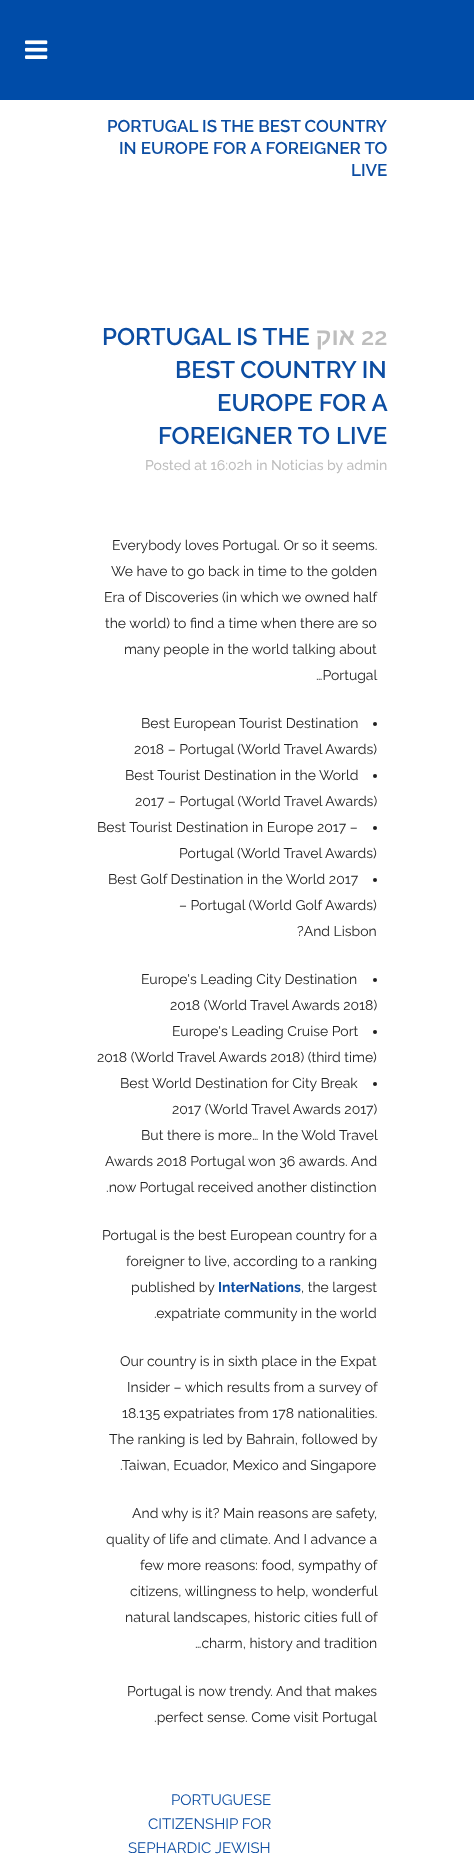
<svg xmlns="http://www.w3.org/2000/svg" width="474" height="1854">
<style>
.a{font:600 17px Raleway;fill:#0c4da2}
.b{font:600 24px Raleway;fill:#0c4da2}
.c{font:bold 24px Liberation Sans;direction:rtl;fill:#bebebe}
.d{font:600 24px Raleway;fill:#bebebe}
.e{font:500 14px Raleway;fill:#bebebe}
.f{font:14px Raleway;fill:#212121}
.g{font:bold 14px Raleway;fill:#0c4da2}
.h{font:15px Raleway;fill:#0c4da2}
</style>
<rect width="100%" height="100%" fill="#fff"/>
<path fill="#004ca8" d="M0 0h474v100H0z"/>
<image href="1.png" x="25" y="40" width="23" height="19"/>
<circle fill="#212121" cx="375" cy="724" r="2"/>
<circle fill="#212121" cx="375" cy="776" r="2"/>
<circle fill="#212121" cx="375" cy="828" r="2"/>
<circle fill="#212121" cx="375" cy="880" r="2"/>
<circle fill="#212121" cx="375" cy="980" r="2"/>
<circle fill="#212121" cx="375" cy="1032" r="2"/>
<circle fill="#212121" cx="375" cy="1084" r="2"/>
<text class="a" x="107" y="132">PORTUGAL IS THE BEST COUNTRY</text>
<text class="a" x="119" y="154">IN EUROPE FOR A FOREIGNER TO</text>
<text class="a" x="351" y="176">LIVE</text>
<text class="b" x="102" y="345">PORTUGAL IS THE</text>
<text class="c" x="355" y="345">אוק</text>
<text class="d" x="361" y="345">22</text>
<text class="b" x="175" y="378">BEST COUNTRY IN</text>
<text class="b" x="217" y="411">EUROPE FOR A</text>
<text class="b" x="158" y="444">FOREIGNER TO LIVE</text>
<text class="e" x="145" y="470">Posted at 16:02h in Noticias by admin</text>
<text class="f" x="112" y="550">Everybody loves Portugal. Or so it seems.</text>
<text class="f" x="111" y="576">We have to go back in time to the golden</text>
<text class="f" x="104" y="602">Era of Discoveries (in which we owned half</text>
<text class="f" x="105" y="628">the world) to find a time when there are so</text>
<text class="f" x="124" y="654">many people in the world talking about</text>
<text class="f" x="316" y="680">…Portugal</text>
<text class="f" x="141" y="728">Best European Tourist Destination</text>
<text class="f" x="134" y="754">2018 – Portugal (World Travel Awards)</text>
<text class="f" x="125" y="780">Best Tourist Destination in the World</text>
<text class="f" x="135" y="806">2017 – Portugal (World Travel Awards)</text>
<text class="f" x="97" y="832">Best Tourist Destination in Europe 2017 –</text>
<text class="f" x="179" y="858">Portugal (World Travel Awards)</text>
<text class="f" x="108" y="884">Best Golf Destination in the World 2017</text>
<text class="f" x="179" y="910">– Portugal (World Golf Awards)</text>
<text class="f" x="297" y="936">?And Lisbon</text>
<text class="f" x="141" y="984">Europe's Leading City Destination</text>
<text class="f" x="170" y="1010">2018 (World Travel Awards 2018)</text>
<text class="f" x="172" y="1036">Europe's Leading Cruise Port</text>
<text class="f" x="97" y="1062">2018 (World Travel Awards 2018) (third time)</text>
<text class="f" x="120" y="1088">Best World Destination for City Break</text>
<text class="f" x="172" y="1114">2017 (World Travel Awards 2017)</text>
<text class="f" x="141" y="1140">But there is more… In the Wold Travel</text>
<text class="f" x="105" y="1166">Awards 2018 Portugal won 36 awards. And</text>
<text class="f" x="106" y="1192">.now Portugal received another distinction</text>
<text class="f" x="102" y="1240">Portugal is the best European country for a</text>
<text class="f" x="126" y="1266">foreigner to live, according to a ranking</text>
<text class="f" x="131" y="1292">published by</text>
<text class="g" x="218" y="1292">InterNations</text>
<text class="f" x="301" y="1292">, the largest</text>
<text class="f" x="154" y="1318">.expatriate community in the world</text>
<text class="f" x="120" y="1366">Our country is in sixth place in the Expat</text>
<text class="f" x="127" y="1392">Insider – which results from a survey of</text>
<text class="f" x="122" y="1418">18.135 expatriates from 178 nationalities.</text>
<text class="f" x="109" y="1444">The ranking is led by Bahrain, followed by</text>
<text class="f" x="120" y="1470">.Taiwan, Ecuador, Mexico and Singapore</text>
<text class="f" x="132" y="1518">And why is it? Main reasons are safety,</text>
<text class="f" x="106" y="1544">quality of life and climate. And I advance a</text>
<text class="f" x="140" y="1570">few more reasons: food, sympathy of</text>
<text class="f" x="130" y="1596">citizens, willingness to help, wonderful</text>
<text class="f" x="125" y="1622">natural landscapes, historic cities full of</text>
<text class="f" x="195" y="1648">…charm, history and tradition</text>
<text class="f" x="127" y="1696">Portugal is now trendy. And that makes</text>
<text class="f" x="154" y="1722">.perfect sense. Come visit Portugal</text>
<text class="h" x="171" y="1805">PORTUGUESE</text>
<text class="h" x="148" y="1829">CITIZENSHIP FOR</text>
<text class="h" x="128" y="1853">SEPHARDIC JEWISH</text>
</svg>
